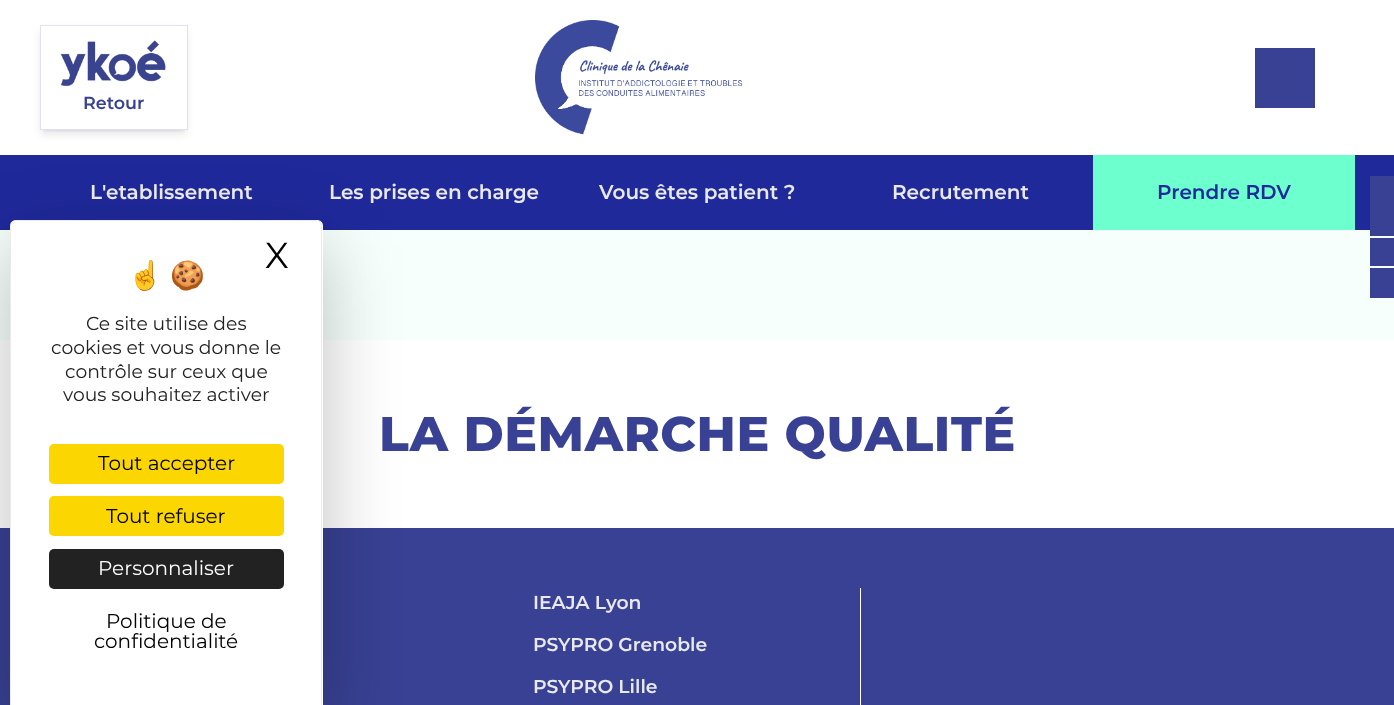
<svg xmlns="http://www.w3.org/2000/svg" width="1394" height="705">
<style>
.a{font:600 17.5px Montserrat;fill:#384193}
.b{font:600 20px Montserrat;fill:#e9e9ec}
.c{font:600 20px Montserrat;fill:#1f299a}
.d{font:800 48.75px Montserrat;letter-spacing:0.6px;fill:#384193}
.e{font:600 18.75px Montserrat;fill:#e9e9ec}
.f{font:36px Montserrat;fill:#000}
.g{font:28px Noto Color Emoji;fill:#222}
.h{font:18.75px Montserrat;fill:#222}
.i{font:20px Montserrat;fill:#000}
.j{font:20px Montserrat;fill:#fff}
</style>
<defs>
<clipPath id="clip1"><path d="M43 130h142v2H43z"/></clipPath>
<clipPath id="clip2"><path d="M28 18h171v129h-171zm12 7h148v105h-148z" clip-rule="evenodd"/></clipPath>
</defs>
<rect width="100%" height="100%" fill="#fff"/>
<g clip-path="url(#clip1)">
<path fill="#0000001a" filter="blur(2.5px)" d="M43 30h142v100H43z"/>
</g>
<g clip-path="url(#clip2)">
<path fill="#0000001a" filter="blur(4px)" d="M41 31h145v103H41z"/>
</g>
<path fill="none" stroke="#5d66bb33" d="M40.5 25.5h147v104H40.5z"/>
<image href="1.png" x="60" y="40" width="106" height="47"/>
<image href="2.png" x="535" y="20" width="208" height="115"/>
<path fill="#384193" d="M1255 48h60v60H1255z"/>
<path fill="#1f299a" d="M0 155h1394v75H0z"/>
<path fill="#6effcf" d="M1093 155h262v75H1093z"/>
<path fill="#f6fffc" d="M0 230h1394v110H0z"/>
<path fill="#384193" d="M1370 176h24v60H1370z"/>
<path fill="#384193" d="M1370 238h24v28H1370z"/>
<path fill="#384193" d="M1370 268h24v30H1370z"/>
<path fill="#384193" d="M0 528h1394v177H0z"/>
<path fill="#fff" d="M860 588h1v117H860z"/>
<rect fill="#00000040" filter="blur(37.5px)" x="10" y="245" width="313" height="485" rx="6"/>
<path fill="#fff" d="M16 220h301c3.5 0 6 2.5 6 6v479h-313v-479c0-3.5 2.5-6 6-6z"/>
<path fill="#00000014" fill-rule="evenodd" d="M16 220h300c4 0 6 3 6 6v479h-312v-479c0-3 3-6 6-6zm0 1h300c3 0 5 2 5 5v479h-310v-479c0-3 2-5 5-5z"/>
<rect fill="#fbd600" x="49" y="444" width="235" height="40" rx="5"/>
<rect fill="#fbd600" x="49" y="496" width="235" height="40" rx="5"/>
<rect fill="#222" x="49" y="549" width="235" height="40" rx="5"/>
<text class="a" x="83" y="109">Retour</text>
<text class="b" x="90" y="199">L'etablissement</text>
<text class="b" x="329" y="199">Les prises en charge</text>
<text class="b" x="599" y="199">Vous êtes patient ?</text>
<text class="b" x="892" y="199">Recrutement</text>
<text class="c" x="1157" y="199">Prendre RDV</text>
<text class="d" x="379" y="451">LA DÉMARCHE QUALITÉ</text>
<text class="e" x="533" y="609">IEAJA Lyon</text>
<text class="e" x="533" y="651">PSYPRO Grenoble</text>
<text class="e" x="533" y="693">PSYPRO Lille</text>
<text class="f" x="265" y="268">X</text>
<text class="g" x="128" y="285">☝️</text>
<text class="g" x="170" y="285">🍪</text>
<text class="h" x="86" y="330">Ce site utilise des</text>
<text class="h" x="51" y="354">cookies et vous donne le</text>
<text class="h" x="65" y="378">contrôle sur ceux que</text>
<text class="h" x="63" y="401">vous souhaitez activer</text>
<text class="i" x="98" y="470">Tout accepter</text>
<text class="i" x="106" y="523">Tout refuser</text>
<text class="j" x="98" y="575">Personnaliser</text>
<text class="i" x="106" y="628">Politique de</text>
<text class="i" x="94" y="648">confidentialité</text>
</svg>
